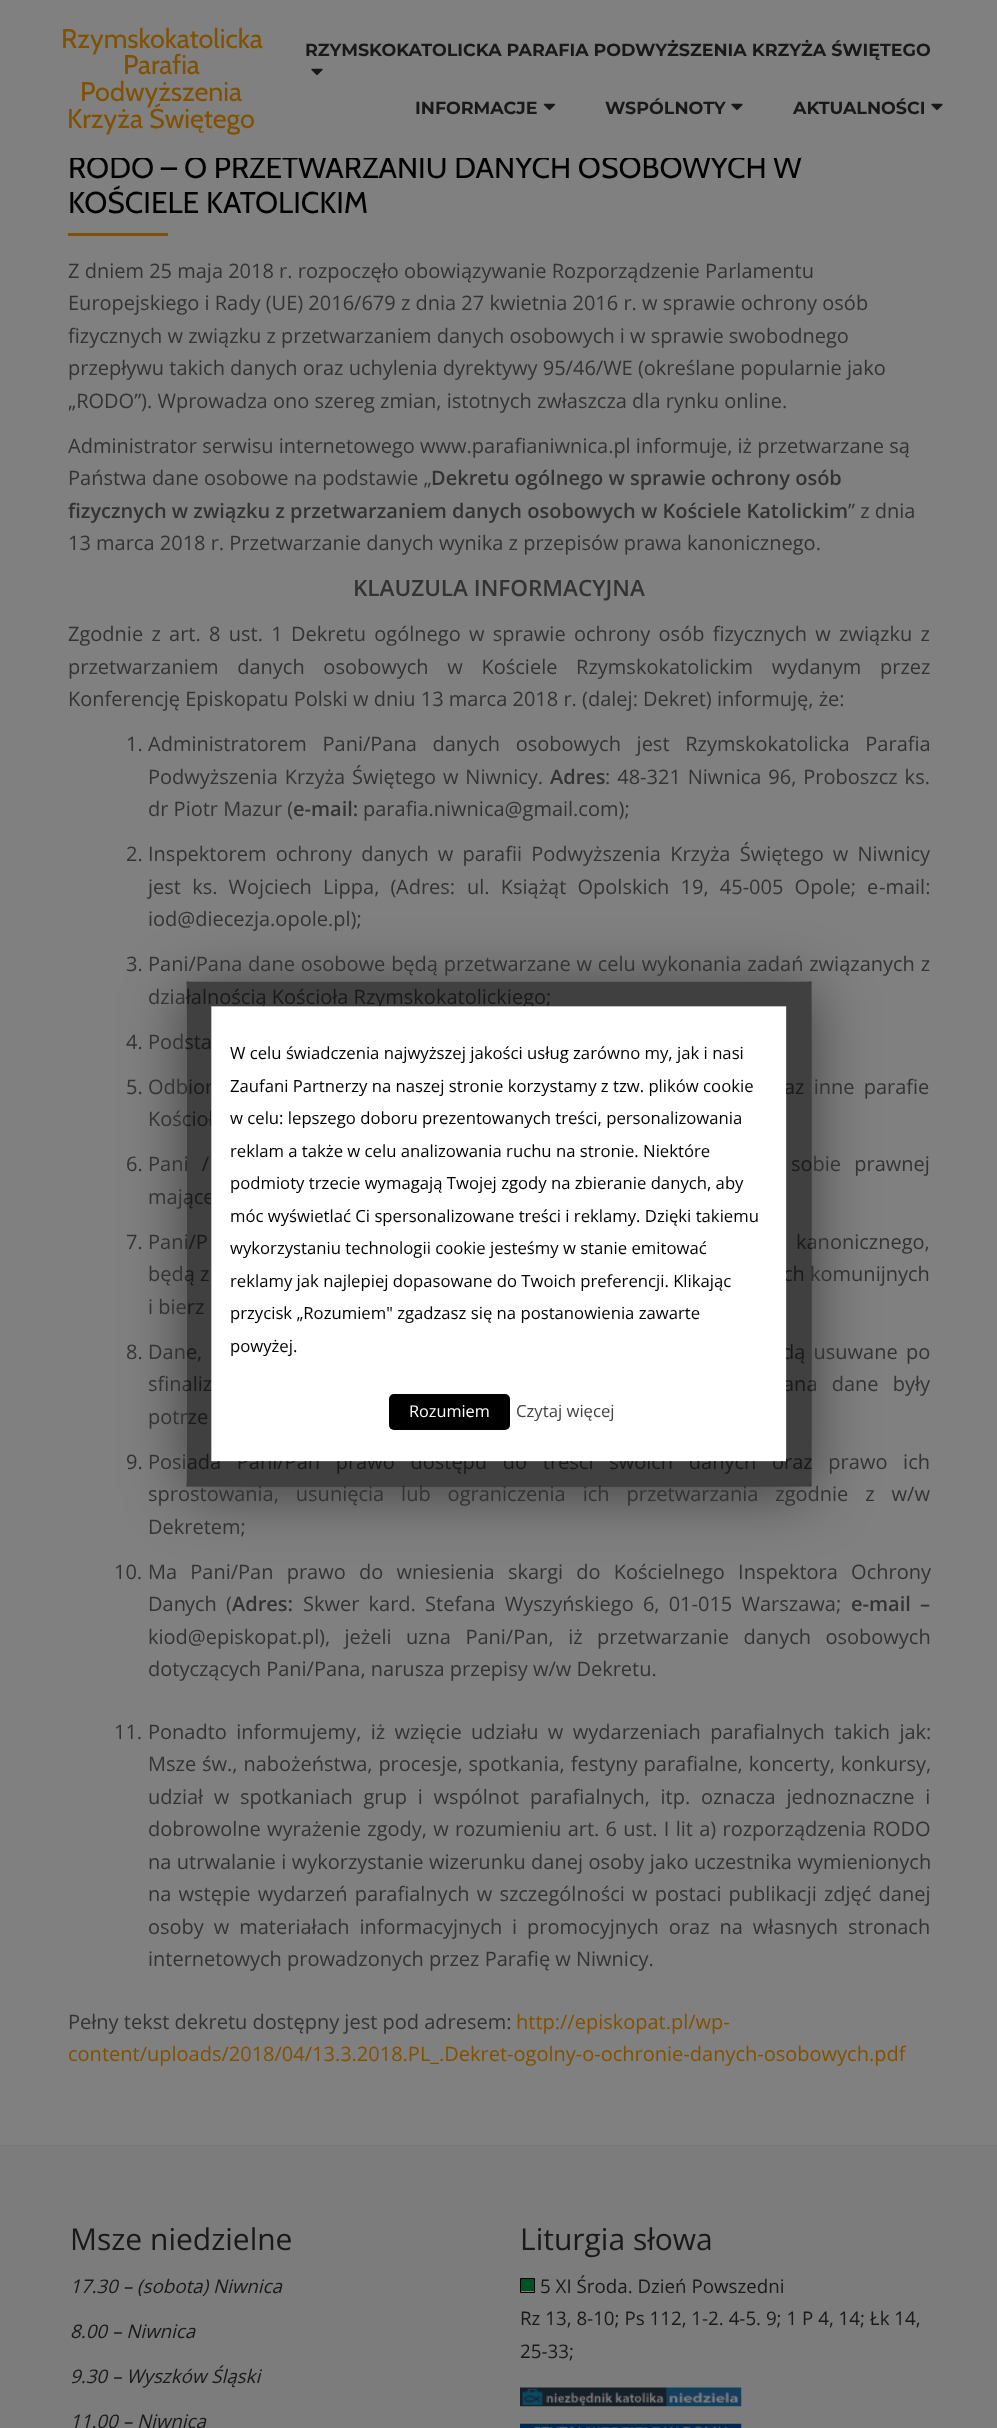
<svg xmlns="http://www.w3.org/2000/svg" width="997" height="2428">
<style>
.a{font:27px Cabin;fill:#805100}
.b{font:bold 17.5px Montserrat;fill:#191919}
.c{font:30px Cabin;fill:#000}
.d{font:20px Open Sans;fill:#333}
.e{font:600 20px Open Sans;fill:#333}
.f{font:600 22.5px Open Sans;fill:#333}
.g{font:20px Open Sans;fill:#805100}
.h{font:16.7px Open Sans;fill:#000}
.i{font:16.25px Open Sans;fill:#fff}
.j{font:16.7px Open Sans;fill:#444}
.k{font:30px Open Sans;fill:#191919}
.l{font:italic 18.75px Open Sans;fill:#191919}
.m{font:18.75px Open Sans;fill:#191919}
</style>
<defs>
<clipPath id="clip1"><path d="M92 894h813v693h-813zm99 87h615c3 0 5 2 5 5v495c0 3-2 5-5 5h-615c-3 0-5-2-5-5v-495c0-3 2-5 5-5z" clip-rule="evenodd"/></clipPath>
</defs>
<rect width="100%" height="100%" fill="#808080"/>
<image href="1.png" x="311" y="68" width="12" height="8"/>
<image href="2.png" x="543" y="103" width="13" height="8"/>
<image href="1.png" x="731" y="103" width="12" height="8"/>
<image href="1.png" x="931" y="103" width="12" height="8"/>
<path fill="#805100" d="M68 233h100v3H68z"/>
<g clip-path="url(#clip1)">
<rect fill="#00000080" filter="blur(31px)" x="186" y="988" width="625" height="505" rx="5"/>
</g>
<path fill="#7c7c7d" d="M0 2146h997v282H0z"/>
<path fill="#757676" d="M0 2145h997v1H0z"/>
<path fill="none" stroke="#000" d="M520.5 2278.5h14v14H520.5z"/>
<path fill="#015026" d="M521 2279h13v12H521z"/>
<image href="3.png" x="520" y="2387" width="222" height="20"/>
<image href="4.png" x="520" y="2423" width="222" height="5"/>
<text class="a" x="61" y="48">Rzymskokatolicka</text>
<text class="a" x="123" y="74">Parafia</text>
<text class="a" x="80" y="101">Podwyższenia</text>
<text class="a" x="67" y="128">Krzyża Świętego</text>
<text class="b" x="305" y="56">RZYMSKOKATOLICKA PARAFIA PODWYŻSZENIA KRZYŻA ŚWIĘTEGO</text>
<text class="b" x="415" y="114">INFORMACJE</text>
<text class="b" x="605" y="114">WSPÓLNOTY</text>
<text class="b" x="793" y="114">AKTUALNOŚCI</text>
<text class="c" x="68" y="178">RODO – O PRZETWARZANIU DANYCH OSOBOWYCH W</text>
<path fill="#808080" d="M69 156h732v2H69z"/>
<text class="c" x="68" y="213">KOŚCIELE KATOLICKIM</text>
<text class="d" x="68" y="278">Z dniem 25 maja 2018 r. rozpoczęło obowiązywanie Rozporządzenie Parlamentu</text>
<text class="d" x="68" y="310">Europejskiego i Rady (UE) 2016/679 z dnia 27 kwietnia 2016 r. w sprawie ochrony osób</text>
<text class="d" x="68" y="343">fizycznych w związku z przetwarzaniem danych osobowych i w sprawie swobodnego</text>
<text class="d" x="68" y="375">przepływu takich danych oraz uchylenia dyrektywy 95/46/WE (określane popularnie jako</text>
<text class="d" x="68" y="408">„RODO”). Wprowadza ono szereg zmian, istotnych zwłaszcza dla rynku online.</text>
<text class="d" x="68" y="453">Administrator serwisu internetowego www.parafianiwnica.pl informuje, iż przetwarzane są</text>
<text class="d" x="68" y="485">Państwa dane osobowe na podstawie „</text>
<text class="e" x="431" y="485">Dekretu ogólnego w sprawie ochrony osób</text>
<text class="e" x="68" y="518">fizycznych w związku z przetwarzaniem danych osobowych w Kościele Katolickim</text>
<text class="d" x="848" y="518">” z dnia</text>
<text class="d" x="68" y="550">13 marca 2018 r. Przetwarzanie danych wynika z przepisów prawa kanonicznego.</text>
<text class="f" x="353" y="596">KLAUZULA INFORMACYJNA</text>
<text class="d" x="68" y="641" word-spacing="3.1">Zgodnie z art. 8 ust. 1 Dekretu ogólnego w sprawie ochrony osób fizycznych w związku z</text>
<text class="d" x="68" y="674" word-spacing="13.5">przetwarzaniem danych osobowych w Kościele Rzymskokatolickim wydanym przez</text>
<text class="d" x="68" y="706">Konferencję Episkopatu Polski w dniu 13 marca 2018 r. (dalej: Dekret) informuję, że:</text>
<text class="d" x="126" y="751">1.</text>
<text class="d" x="148" y="751" word-spacing="10.5">Administratorem Pani/Pana danych osobowych jest Rzymskokatolicka Parafia</text>
<text class="d" x="148" y="784" word-spacing="1.75">Podwyższenia Krzyża Świętego w Niwnicy.</text>
<text class="e" x="550" y="784">Adres</text>
<text class="d" x="605" y="784" word-spacing="1.75">: 48-321 Niwnica 96, Proboszcz ks.</text>
<text class="d" x="148" y="816">dr Piotr Mazur (</text>
<text class="e" x="293" y="816">e-mail:</text>
<text class="d" x="363" y="816">parafia.niwnica@gmail.com);</text>
<text class="d" x="126" y="861">2.</text>
<text class="d" x="148" y="861" word-spacing="4">Inspektorem ochrony danych w parafii Podwyższenia Krzyża Świętego w Niwnicy</text>
<text class="d" x="148" y="894" word-spacing="6">jest ks. Wojciech Lippa, (</text>
<text class="d" x="396" y="894">Adres:</text>
<text class="d" x="467" y="894" word-spacing="6">ul. Książąt Opolskich 19, 45-005 Opole; e</text>
<text class="d" x="879" y="894">-mail:</text>
<text class="d" x="148" y="926">iod@diecezja.opole.pl);</text>
<text class="d" x="126" y="971">3.</text>
<text class="d" x="148" y="971" word-spacing="0.6">Pani/Pana dane osobowe będą przetwarzane w celu wykonania zadań związanych z</text>
<text class="d" x="148" y="1004">działalnością Kościoła Rzymskokatolickiego;</text>
<text class="d" x="126" y="1049">4. Podsta</text>
<text class="d" x="126" y="1094">5.</text>
<text class="d" x="148" y="1094" word-spacing="4">Odbior</text>
<text class="d" x="784" y="1094" word-spacing="4">az inne parafie</text>
<text class="d" x="148" y="1126">Kościoł</text>
<text class="d" x="126" y="1171">6.</text>
<text class="d" x="148" y="1171" word-spacing="8">Pani /</text>
<text class="d" x="791" y="1171" word-spacing="8">sobie prawnej</text>
<text class="d" x="148" y="1204">mające</text>
<text class="d" x="126" y="1249">7.</text>
<text class="d" x="148" y="1249" word-spacing="5">Pani/P</text>
<text class="d" x="796" y="1249" word-spacing="5">kanonicznego,</text>
<text class="d" x="148" y="1281">będą z</text>
<text class="d" x="783" y="1281">ch komunijnych</text>
<text class="d" x="148" y="1314">i bierz</text>
<text class="d" x="126" y="1359">8.</text>
<text class="d" x="148" y="1359" word-spacing="3">Dane,</text>
<text class="d" x="782" y="1359" word-spacing="3">dą usuwane po</text>
<text class="d" x="148" y="1391" word-spacing="9">sfinaliz</text>
<text class="d" x="783" y="1391" word-spacing="9">ana dane były</text>
<text class="d" x="148" y="1424">potrze</text>
<text class="d" x="126" y="1469">9.</text>
<text class="d" x="148" y="1469" word-spacing="10.5">Posiada Pani/Pan prawo dostępu do treści swoich danych oraz prawo ich</text>
<text class="d" x="148" y="1501" word-spacing="11.75">sprostowania, usunięcia lub ograniczenia ich przetwarzania zgodnie z w/w</text>
<text class="d" x="148" y="1534">Dekretem;</text>
<text class="d" x="114" y="1579">10.</text>
<text class="d" x="148" y="1579" word-spacing="8">Ma Pani/Pan prawo do wniesienia skargi do Kościelnego Inspektora Ochrony</text>
<text class="d" x="148" y="1611">Dan</text>
<text class="d" x="185" y="1611" word-spacing="4">ych (</text>
<text class="e" x="232" y="1611">Adres:</text>
<text class="d" x="303" y="1611" word-spacing="4">Skwer kard. Stefana Wyszyńskiego 6, 01-015 Warszawa;</text>
<text class="e" x="851" y="1611" word-spacing="4">e-mail –</text>
<text class="d" x="148" y="1644">kiod@episkopat.pl</text>
<text class="d" x="319" y="1644" word-spacing="9.25">), jeżeli uzna Pani/Pan, iż przetwarzanie danych osobowych</text>
<text class="d" x="148" y="1676">dotyczących Pani/Pana, narusza przepisy w/w Dekretu.</text>
<text class="d" x="114" y="1739">11.</text>
<text class="d" x="148" y="1739" word-spacing="4.25">Ponadto informujemy, iż wzięcie udziału w wydarzeniach parafialnych takich jak:</text>
<text class="d" x="148" y="1771" word-spacing="0.75">Msze św., nabożeństwa, procesje, spotkania, festyny parafialne, koncerty, konkursy,</text>
<text class="d" x="148" y="1804" word-spacing="5.5">udział w spotkaniach grup i wspólnot parafialnych, itp. oznacza jednoznaczne i</text>
<text class="d" x="148" y="1836" word-spacing="1.1">dobrowolne wyrażenie zgody, w rozumieniu art. 6 ust. I lit a) rozporządzenia RODO</text>
<text class="d" x="148" y="1869" word-spacing="0.25">na utrwalanie i wykorzystanie wizerunku danej osoby jako uczestnika wymienionych</text>
<text class="d" x="148" y="1901" word-spacing="2">na wstępie wydarzeń parafialnych w szczególności w postaci publikacji zdjęć danej</text>
<text class="d" x="148" y="1934" word-spacing="4.75">osoby w materiałach informacyjnych i promocyjnych oraz na własnych stronach</text>
<text class="d" x="148" y="1966">internetowych prowadzonych przez Parafię w Niwnicy.</text>
<text class="d" x="68" y="2029">Pełny tekst dekretu dostępny jest pod adresem:</text>
<text class="g" x="516" y="2029">http://episkopat.pl/wp-</text>
<text class="g" x="68" y="2061">content/uploads/2018/04/13.3.2018.PL_.Dekret-ogolny-o-ochronie-danych-osobowych.pdf</text>
<path fill="#fff" d="M211 1006h575v455H211z"/>
<path fill="none" stroke="#00000080" stroke-width="25" d="M199 994h600v480h-600z"/>
<text class="h" x="230" y="1059">W celu świadczenia najwyższej jakości usług zarówno my, jak i nasi</text>
<text class="h" x="230" y="1092">Zaufani Partnerzy na naszej stronie korzystamy z tzw. plików cookie</text>
<text class="h" x="230" y="1124">w celu: lepszego doboru prezentowanych treści, personalizowania</text>
<text class="h" x="230" y="1157">reklam a także w celu analizowania ruchu na stronie. Niektóre</text>
<text class="h" x="230" y="1189">podmioty trzecie wymagają Twojej zgody na zbieranie danych, aby</text>
<text class="h" x="230" y="1222">móc wyświetlać Ci spersonalizowane treści i reklamy. Dzięki takiemu</text>
<text class="h" x="230" y="1254">wykorzystaniu technologii cookie jesteśmy w stanie emitować</text>
<text class="h" x="230" y="1287">reklamy jak najlepiej dopasowane do Twoich preferencji. Klikając</text>
<text class="h" x="230" y="1319">przycisk „Rozumiem" zgadzasz się na postanowienia zawarte</text>
<text class="h" x="230" y="1352">powyżej.</text>
<rect fill="#000" x="389" y="1394" width="121" height="36" rx="5"/>
<text class="i" x="409" y="1417">Rozumiem</text>
<text class="j" x="516" y="1417">Czytaj więcej</text>
<text class="k" x="70" y="2250">Msze niedzielne</text>
<text class="l" x="70" y="2293">17.30 – (sobota) Niwnica</text>
<text class="l" x="70" y="2338">8.00 – Niwnica</text>
<text class="l" x="70" y="2383">9.30 – Wyszków Śląski</text>
<text class="l" x="70" y="2428">11.00 – Niwnica</text>
<text class="k" x="520" y="2250">Liturgia słowa</text>
<text class="m" x="540" y="2293">5 XI Środa. Dzień Powszedni</text>
<text class="m" x="520" y="2325">Rz 13, 8-10; Ps 112, 1-2. 4-5. 9; 1 P 4, 14; Łk 14,</text>
<text class="m" x="520" y="2358">25-33;</text>
</svg>
